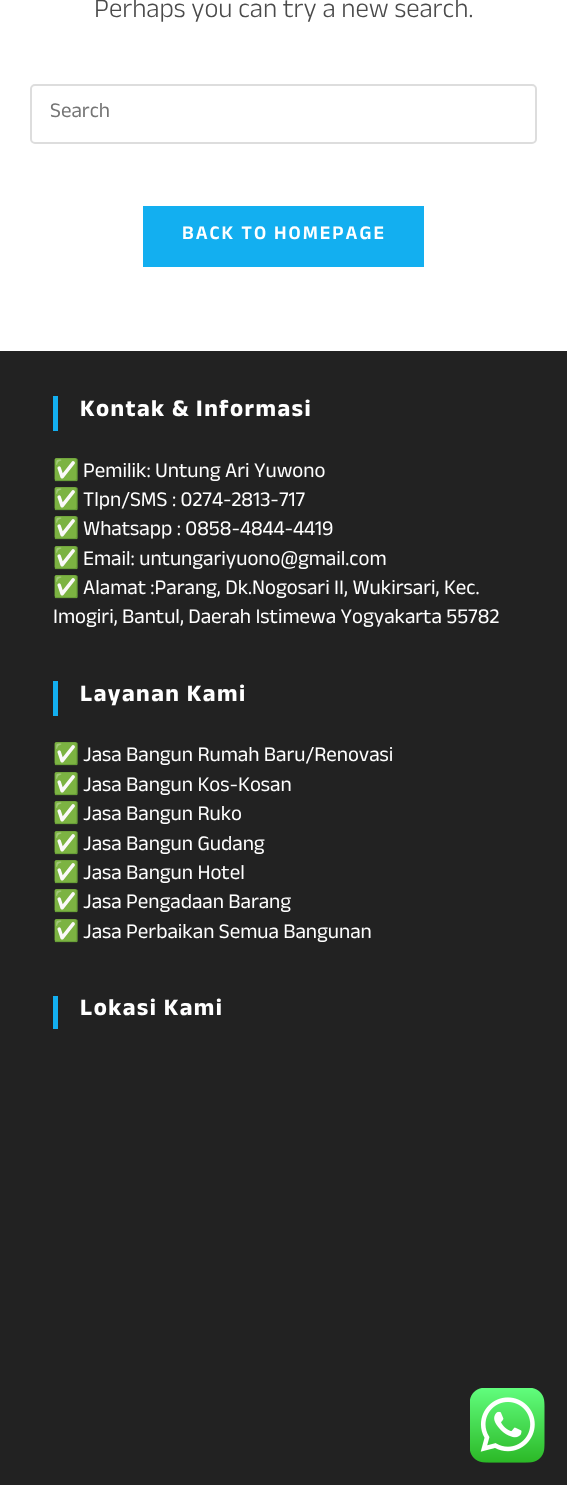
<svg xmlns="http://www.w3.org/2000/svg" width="567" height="1485">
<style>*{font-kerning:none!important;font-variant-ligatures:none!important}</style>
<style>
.a{font:300 27px Anek Odia;fill:#4a4a4a}
.b{font:21px Anek Odia;fill:#757575}
.c{font:600 19.5px Anek Odia;letter-spacing:2px;fill:#fff}
.d{font:bold 24px Anek Odia;letter-spacing:1.5px;fill:#fff}
.e{font:21px Noto Color Emoji;fill:#fff}
.f{font:21px Anek Odia;fill:#fff}
</style>
<rect width="100%" height="100%" fill="#fff"/>
<rect fill="none" stroke="#ddd" stroke-width="2" x="31" y="85" width="505" height="58" rx="4"/>
<path fill="#13aff0" d="M143 206h281v61H143z"/>
<path fill="#222" d="M0 351h567v1134H0z"/>
<path fill="#13aff0" d="M53 396h5v35H53z"/>
<path fill="#13aff0" d="M53 681h5v35H53z"/>
<path fill="#13aff0" d="M53 996h5v33H53z"/>
<image href="1.png" x="470" y="1388" width="75" height="75"/>
<text class="a" x="94" y="17">Perhaps you can try a new search.</text>
<text class="b" x="50" y="117">Search</text>
<text class="c" x="182" y="239">BACK TO HOMEPAGE</text>
<text class="d" x="80" y="416">Kontak &amp; Informasi</text>
<text class="e" x="53" y="477">✅</text>
<text class="f" x="83" y="477">Pemilik: Untung Ari Yuwono</text>
<text class="e" x="53" y="506">✅</text>
<text class="f" x="83" y="506">Tlpn/SMS : 0274-2813-717</text>
<text class="e" x="53" y="535">✅</text>
<text class="f" x="83" y="535">Whatsapp : 0858-4844-4419</text>
<text class="e" x="53" y="565">✅</text>
<text class="f" x="83" y="565">Email: untungariyuono@gmail.com</text>
<text class="e" x="53" y="594">✅</text>
<text class="f" x="83" y="594">Alamat :Parang, Dk.Nogosari II, Wukirsari, Kec.</text>
<text class="f" x="53" y="623">Imogiri, Bantul, Daerah Istimewa Yogyakarta 55782</text>
<text class="d" x="80" y="701">Layanan Kami</text>
<text class="e" x="53" y="761">✅</text>
<text class="f" x="83" y="761">Jasa Bangun Rumah Baru/Renovasi</text>
<text class="e" x="53" y="791">✅</text>
<text class="f" x="83" y="791">Jasa Bangun Kos-Kosan</text>
<text class="e" x="53" y="820">✅</text>
<text class="f" x="83" y="820">Jasa Bangun Ruko</text>
<text class="e" x="53" y="850">✅</text>
<text class="f" x="83" y="850">Jasa Bangun Gudang</text>
<text class="e" x="53" y="879">✅</text>
<text class="f" x="83" y="879">Jasa Bangun Hotel</text>
<text class="e" x="53" y="908">✅</text>
<text class="f" x="83" y="908">Jasa Pengadaan Barang</text>
<text class="e" x="53" y="938">✅</text>
<text class="f" x="83" y="938">Jasa Perbaikan Semua Bangunan</text>
<text class="d" x="80" y="1015">Lokasi Kami</text>
</svg>
